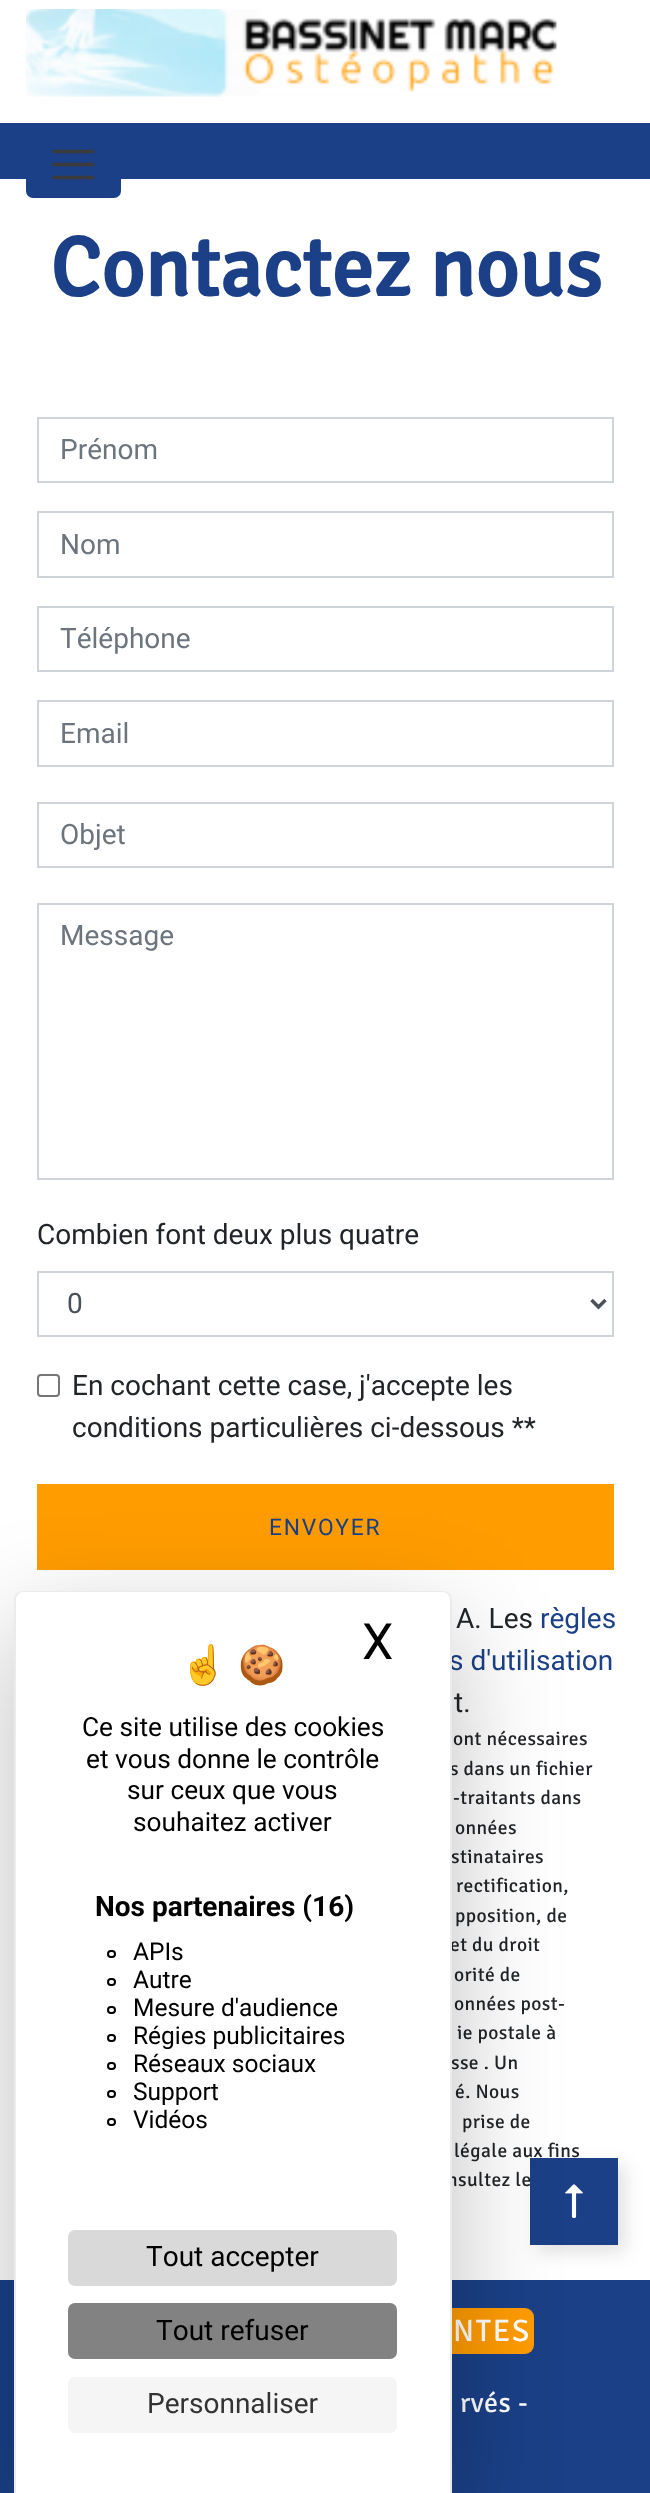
<svg xmlns="http://www.w3.org/2000/svg" width="650" height="2493">
<style>*{font-kerning:none!important;font-variant-ligatures:none!important}</style>
<style>
.a{font:bold 84px Signika;fill:#1b4087}
.b{font:28px Roboto;fill:#6c757d}
.c{font:28px Roboto;fill:#212529}
.d{font:28px Roboto;fill:#495057}
.e{font:22.75px Roboto;letter-spacing:1.75px;fill:#1b4087}
.f{font:28px Roboto;fill:#1b4087}
.g{font:300 19.5px Signika;letter-spacing:0.4px;fill:#212529}
.h{font:300 31px Signika;letter-spacing:1.75px;fill:#fff}
.i{font:300 28px Signika;letter-spacing:0.5px;fill:#fff}
.j{font:38px Noto Color Emoji;fill:#000}
.k{font:50px Roboto;fill:#000}
.l{font:26.25px Roboto;fill:#000}
.m{font:bold 28px Roboto;fill:#000}
.n{font:24.5px Roboto;fill:#000}
.o{font:28px Roboto;fill:#000}
.p{font:28px Roboto;fill:#333}
</style>
<rect width="100%" height="100%" fill="#fff"/>
<image href="1.png" x="26" y="9" width="532" height="88"/>
<path fill="#1b4087" d="M0 123h650v56H0z"/>
<rect fill="#1b4087" x="26" y="131" width="95" height="67" rx="7"/>
<path fill="none" stroke="#3b3b3b" stroke-width="3.3" stroke-linecap="round" d="M54 151.5h39m-39 13h39m-39 13h39"/>
<path fill="none" stroke="#ced4da" stroke-width="2" d="M38 418h575v64H38z"/>
<path fill="none" stroke="#ced4da" stroke-width="2" d="M38 512h575v65H38z"/>
<path fill="none" stroke="#ced4da" stroke-width="2" d="M38 607h575v64H38z"/>
<path fill="none" stroke="#ced4da" stroke-width="2" d="M38 701h575v65H38z"/>
<path fill="none" stroke="#ced4da" stroke-width="2" d="M38 803h575v64H38z"/>
<path fill="none" stroke="#ced4da" stroke-width="2" d="M38 904h575v275H38z"/>
<path fill="none" stroke="#ced4da" stroke-width="2" d="M38 1272h575v64H38z"/>
<path fill="none" stroke="#495057" stroke-width="3.5" d="M591.5 1300l7 7l7-7"/>
<rect fill="none" stroke="#767676" stroke-width="2" x="38" y="1375" width="21" height="21" rx="3"/>
<path fill="#ff9c00" d="M37 1484h577v86H37z"/>
<path fill="#1b4087" d="M0 2280h650v213H0z"/>
<rect fill="#ff9c00" x="117" y="2308" width="417" height="46" rx="9"/>
<path fill="#0000001f" filter="blur(9px)" d="M537 2165h88v87H537z"/>
<text class="a" x="50" y="296">Contactez nous</text>
<text class="b" x="60" y="459">Prénom</text>
<text class="b" x="60" y="554">Nom</text>
<text class="b" x="60" y="648">Téléphone</text>
<text class="b" x="60" y="743">Email</text>
<text class="b" x="60" y="844">Objet</text>
<text class="b" x="60" y="945">Message</text>
<text class="c" x="37" y="1244">Combien font deux plus quatre</text>
<text class="d" x="67" y="1313">0</text>
<text class="c" x="72" y="1395">En cochant cette case, j'accepte les</text>
<text class="c" x="72" y="1437">conditions particulières ci-dessous **</text>
<text class="e" x="269" y="1535">ENVOYER</text>
<text class="c" x="456" y="1628">A. Les</text>
<text class="f" x="540" y="1628">règles</text>
<text class="f" x="449" y="1670">s d'utilisation</text>
<text class="c" x="454" y="1712">t.</text>
<text class="g" x="453" y="1745">ont nécessaires</text>
<text class="g" x="450" y="1775">s dans un fichier</text>
<text class="g" x="453" y="1804">-traitants dans</text>
<text class="g" x="455" y="1834">onnées</text>
<text class="g" x="451" y="1863">stinataires</text>
<text class="g" x="456" y="1892">rectification,</text>
<text class="g" x="455" y="1922">pposition, de</text>
<text class="g" x="450" y="1951">et du droit</text>
<text class="g" x="454" y="1981">orité de</text>
<text class="g" x="454" y="2010">onnées post-</text>
<text class="g" x="457" y="2039">ie postale à</text>
<text class="g" x="451" y="2069">sse . Un</text>
<text class="g" x="455" y="2098">é. Nous</text>
<text class="g" x="462" y="2128">prise de</text>
<text class="g" x="454" y="2157">légale aux fins</text>
<text class="g" x="447" y="2186">nsultez le</text>
<text class="h" x="453" y="2341">NTES</text>
<text class="i" x="460" y="2412">rvés -</text>
<path fill="#1b4087" d="M530 2158h88v87H530z"/>
<image href="2.png" x="565" y="2184" width="18" height="34"/>
<rect fill="#00000040" filter="blur(52.5px)" x="14" y="1626" width="438" height="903" rx="9"/>
<path fill="#fff" d="M23 1591h420c5 0 9 4 9 9v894h-438v-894c0-5 4-9 9-9z"/>
<path fill="#00000014" fill-rule="evenodd" d="M23 1591h420c5 0 9 4 9 9v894h-438v-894c0-5 4-9 9-9zm0 1h420c4 0 7 4 7 8v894h-434v-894c0-4 3-8 7-8z"/>
<text class="j" x="180" y="1678">☝️</text>
<text class="j" x="238" y="1678">🍪</text>
<text class="k" x="362" y="1659">X</text>
<text class="l" x="82" y="1736">Ce site utilise des cookies</text>
<text class="l" x="86" y="1768">et vous donne le contrôle</text>
<text class="l" x="127" y="1799">sur ceux que vous</text>
<text class="l" x="133" y="1831">souhaitez activer</text>
<text class="m" x="95" y="1916">Nos partenaires (16)</text>
<rect fill="none" stroke="#000" stroke-width="2" x="108" y="1951" width="7" height="6" rx="3"/>
<text class="n" x="133" y="1960">APIs</text>
<rect fill="none" stroke="#000" stroke-width="2" x="108" y="1979" width="7" height="6" rx="3"/>
<text class="n" x="133" y="1988">Autre</text>
<rect fill="none" stroke="#000" stroke-width="2" x="108" y="2007" width="7" height="6" rx="3"/>
<text class="n" x="133" y="2016">Mesure d'audience</text>
<rect fill="none" stroke="#000" stroke-width="2" x="108" y="2035" width="7" height="6" rx="3"/>
<text class="n" x="133" y="2044">Régies publicitaires</text>
<rect fill="none" stroke="#000" stroke-width="2" x="108" y="2063" width="7" height="6" rx="3"/>
<text class="n" x="133" y="2072">Réseaux sociaux</text>
<rect fill="none" stroke="#000" stroke-width="2" x="108" y="2091" width="7" height="6" rx="3"/>
<text class="n" x="133" y="2100">Support</text>
<rect fill="none" stroke="#000" stroke-width="2" x="108" y="2119" width="7" height="6" rx="3"/>
<text class="n" x="133" y="2128">Vidéos</text>
<rect fill="#d9d9d9" x="68" y="2230" width="329" height="56" rx="7"/>
<text class="o" x="146" y="2266">Tout accepter</text>
<rect fill="#828282" x="68" y="2303" width="329" height="56" rx="7"/>
<text class="o" x="156" y="2340">Tout refuser</text>
<rect fill="#f5f5f5" x="68" y="2377" width="329" height="56" rx="7"/>
<text class="p" x="147" y="2413">Personnaliser</text>
</svg>
